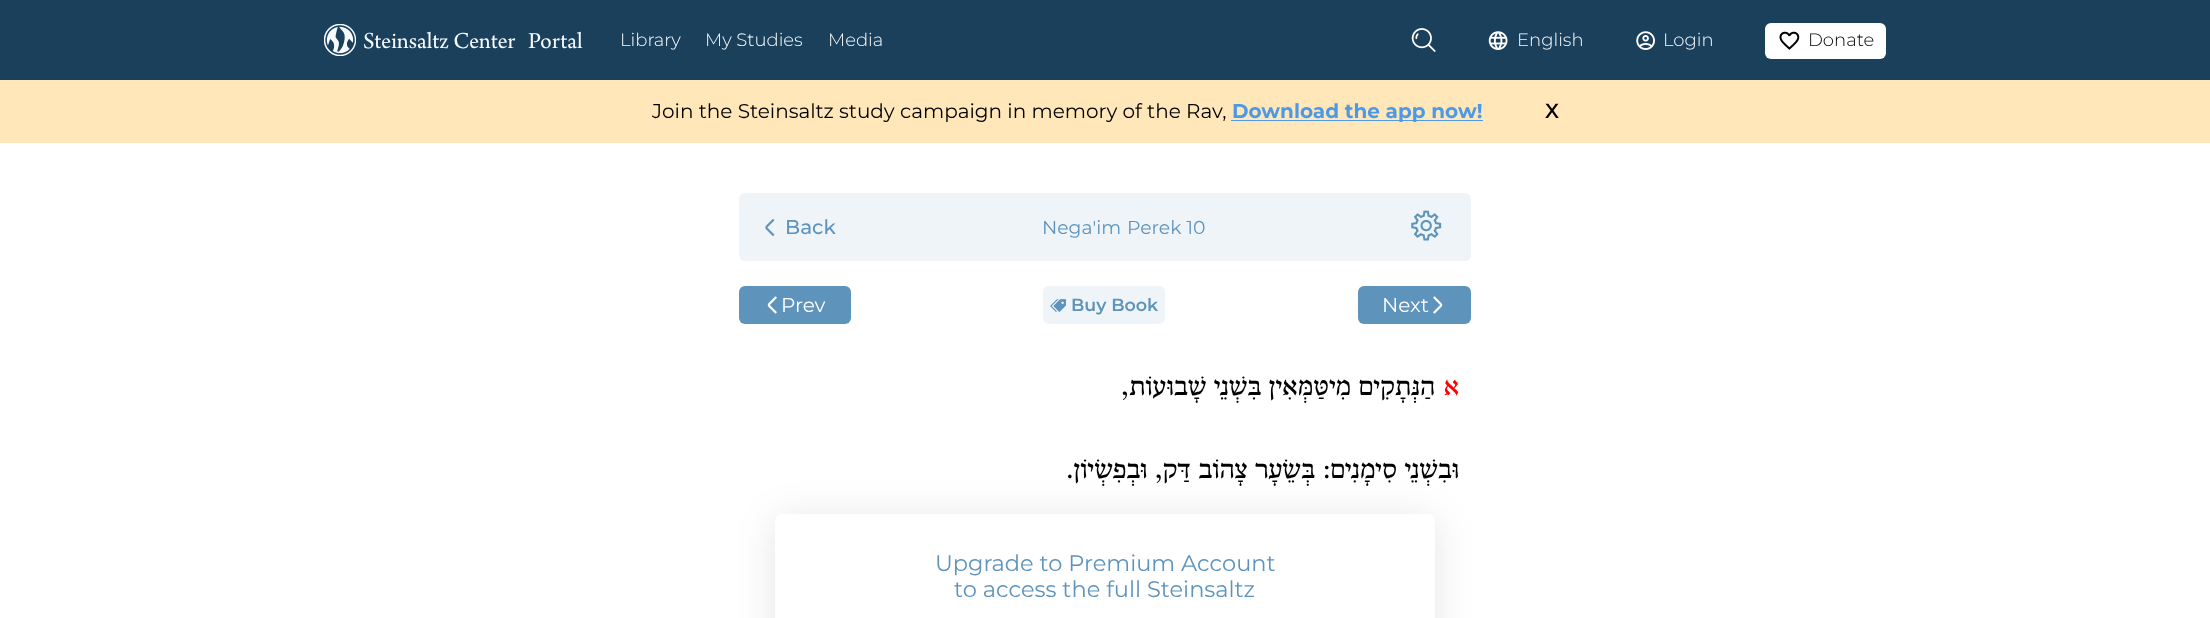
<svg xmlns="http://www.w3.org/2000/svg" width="2210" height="618">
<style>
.a{font:24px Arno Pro;fill:#f7fbfe}
.b{font:300 18px Montserrat;fill:#f7fbfe}
.c{font:300 18px Montserrat;fill:#000}
.d{font:20px Montserrat;fill:#000}
.e{font:bold 20px Montserrat;fill:#4d99e6}
.f{font:bold 20px Arimo;fill:#000}
.g{font:500 20px Montserrat;fill:#5e94bc}
.h{font:18.75px Montserrat;fill:#5e94bc}
.i{font:20px Montserrat;fill:#fff}
.j{font:600 17.5px Montserrat;fill:#5e94bc}
.k{font:27.5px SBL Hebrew;direction:rtl;fill:#000}
.l{font:27.5px SBL Hebrew;direction:rtl;fill:#f00}
.m{font:22.5px Montserrat;fill:#5e94bc}
</style>
<defs>
<clipPath id="clip1"><path d="M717 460h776v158h-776zm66 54h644c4.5 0 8 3.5 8 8v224c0 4.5-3.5 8-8 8h-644c-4.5 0-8-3.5-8-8v-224c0-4.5 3.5-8 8-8z" clip-rule="evenodd"/></clipPath>
</defs>
<rect width="100%" height="100%" fill="#fff"/>
<path fill="#1b405c" d="M0 0h2210v80H0z"/>
<image href="1.png" x="324" y="24" width="32" height="32"/>
<image href="2.png" x="1411" y="28" width="25" height="24"/>
<image href="3.png" x="1488" y="31" width="20" height="19"/>
<image href="4.png" x="1636" y="31" width="19" height="19"/>
<rect fill="#fff" x="1765" y="23" width="121" height="36" rx="6"/>
<image href="5.png" x="1779" y="31" width="21" height="19"/>
<path fill="#ffe7ba" d="M0 80h2210v63H0z"/>
<path fill="#4d99e6" d="M1231 120h252v1H1231z"/>
<rect fill="#eff4f8" x="739" y="193" width="732" height="68" rx="6"/>
<image href="6.png" x="765" y="219" width="10" height="17"/>
<image href="7.png" x="1411" y="210" width="31" height="31"/>
<rect fill="#5e94bc" x="739" y="286" width="112" height="38" rx="6"/>
<image href="8.png" x="767" y="296" width="10" height="18"/>
<rect fill="#eff4f8" x="1043" y="286" width="122" height="38" rx="6"/>
<image href="9.png" x="1050" y="299" width="16" height="13"/>
<rect fill="#5e94bc" x="1358" y="286" width="113" height="38" rx="6"/>
<image href="10.png" x="1433" y="296" width="10" height="18"/>
<g clip-path="url(#clip1)">
<rect fill="#0000001a" filter="blur(19px)" x="775" y="518" width="660" height="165" rx="8"/>
</g>
<text class="a" x="363" y="48">Steinsaltz Center</text>
<text class="a" x="528" y="48">Portal</text>
<text class="b" x="620" y="46">Library</text>
<text class="b" x="705" y="46">My Studies</text>
<text class="b" x="828" y="46">Media</text>
<text class="b" x="1517" y="46">English</text>
<text class="b" x="1663" y="46">Login</text>
<text class="c" x="1808" y="46">Donate</text>
<text class="d" x="652" y="118">Join the Steinsaltz study campaign in memory of the Rav,</text>
<text class="e" x="1232" y="118">Download the app now!</text>
<text class="f" x="1545" y="118">X</text>
<text class="g" x="785" y="234">Back</text>
<text class="h" x="1042" y="234">Nega'im</text>
<text class="h" x="1127" y="234">Perek 10</text>
<text class="i" x="781" y="312">Prev</text>
<text class="j" x="1071" y="311">Buy Book</text>
<text class="i" x="1382" y="312">Next</text>
<text class="k" x="1435" y="395">הַנְּתָקִים מִיטַּמְּאִין בִּשְׁנֵי שָׁבוּעוֹת,</text>
<text class="l" x="1459" y="395">א</text>
<text class="k" x="1459" y="478">וּבִשְׁנֵי סִימָנִים: בְּשֵׂעָר צָהוֹב דַּק, וּבְפִשְׂיוֹן.</text>
<text class="m" x="935" y="571">Upgrade to Premium Account</text>
<text class="m" x="954" y="597">to access the full Steinsaltz</text>
</svg>
